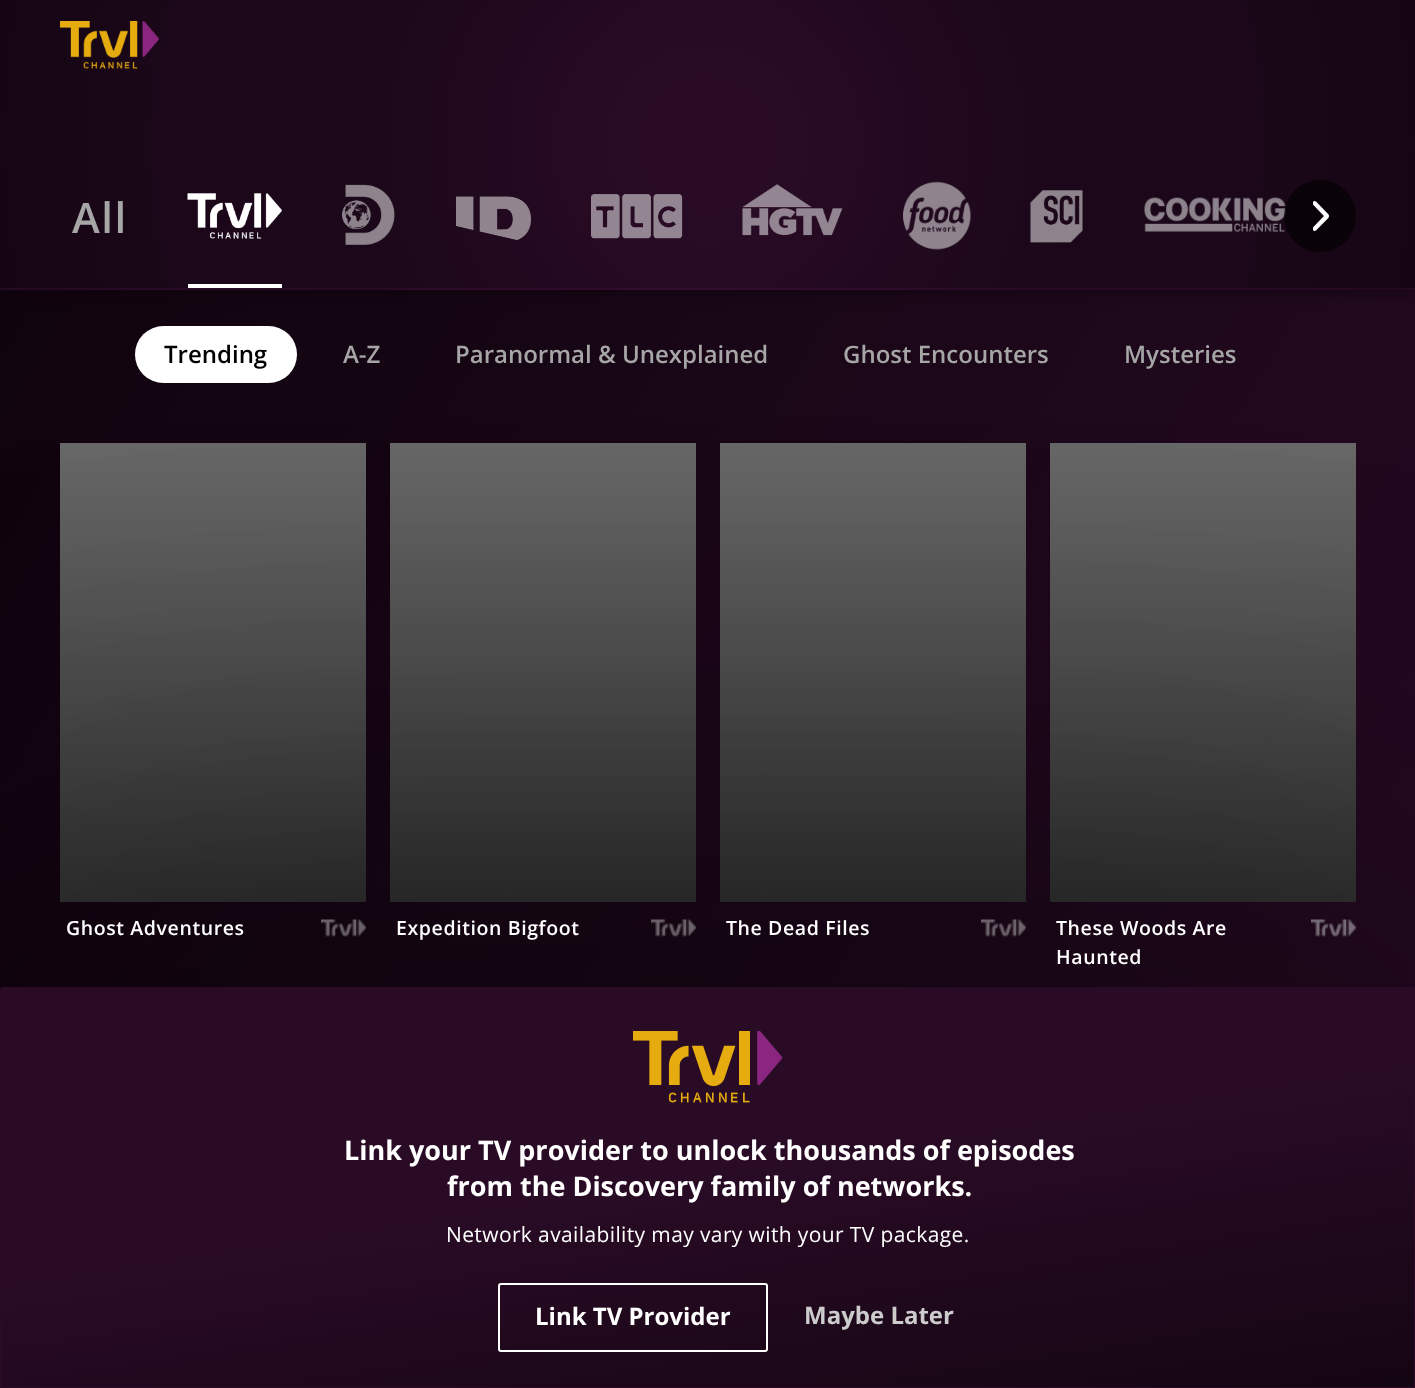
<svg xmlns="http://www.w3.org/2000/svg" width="1415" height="1388">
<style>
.a{font:600 42px Open Sans;letter-spacing:1.5px;fill:#a6a6a6}
.b{font:600 24px Open Sans;fill:#000}
.c{font:600 24px Open Sans;fill:#a6a6a6}
.d{font:600 19.5px Open Sans;letter-spacing:0.6px;fill:#fff}
.e{font:bold 27px Open Sans;fill:#fff}
.f{font:21px Open Sans;letter-spacing:0.38px;fill:#fff}
.g{font:bold 24px Open Sans;fill:#fff}
.h{font:bold 24px Open Sans;fill:#ccc}
</style>
<defs>
<linearGradient id="g1" gradientUnits="userSpaceOnUse" x1="-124" y1="214" x2="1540" y2="1175"><stop offset="0" stop-color="#0d030c"/><stop offset="1" stop-color="#290b25"/></linearGradient>
<radialGradient id="g2" gradientUnits="userSpaceOnUse" cx="708" cy="144" r="1011"><stop offset="0.06" stop-color="#290b25"/><stop offset="0.36" stop-color="#1b0719"/><stop offset="0.51" stop-color="#1b0719"/><stop offset="1" stop-color="#0d030c"/></radialGradient>
<radialGradient id="g3" gradientUnits="userSpaceOnUse" cx="708" cy="432" r="1011"><stop offset="0.06" stop-color="#290b25"/><stop offset="0.36" stop-color="#1b0719"/><stop offset="0.51" stop-color="#1b0719"/><stop offset="1" stop-color="#0d030c"/></radialGradient>
<clipPath id="clip1"><path d="M188 144h94v144H188z"/></clipPath>
<linearGradient id="g4" gradientUnits="userSpaceOnUse" x1="213" y1="443" x2="213" y2="902"><stop offset="0" stop-color="#686868"/><stop offset="1" stop-color="#333"/></linearGradient>
<linearGradient id="g5" gradientUnits="userSpaceOnUse" x1="543" y1="443" x2="543" y2="902"><stop offset="0" stop-color="#686868"/><stop offset="1" stop-color="#333"/></linearGradient>
<linearGradient id="g6" gradientUnits="userSpaceOnUse" x1="873" y1="443" x2="873" y2="902"><stop offset="0" stop-color="#686868"/><stop offset="1" stop-color="#333"/></linearGradient>
<linearGradient id="g7" gradientUnits="userSpaceOnUse" x1="1203" y1="443" x2="1203" y2="902"><stop offset="0" stop-color="#686868"/><stop offset="1" stop-color="#333"/></linearGradient>
<linearGradient id="g8" gradientUnits="userSpaceOnUse" x1="660" y1="884" x2="773" y2="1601"><stop offset="0.4" stop-color="#290b25"/><stop offset="1" stop-color="#0d030c"/></linearGradient>
</defs>
<rect width="100%" height="100%" fill="#fff"/>
<path fill="url(#g1)" d="M0 290h1415v1098H0z"/>
<path fill="#0d030c99" filter="blur(6px)" d="M0 3h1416v290H0z"/>
<path fill="url(#g2)" d="M0 0h1415v288H0z"/>
<image href="1.png" x="60" y="21" width="99" height="48"/>
<path fill="url(#g3)" d="M0 288h1415v2H0z"/>
<path fill="#75206c29" d="M0 288h1415v2H0z"/>
<g clip-path="url(#clip1)">
<path fill="#fff" fill-rule="evenodd" d="M39-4h391v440h-391zm149 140h94c1 0 2 1 2 2v144c0 1-1 2-2 2h-94c-1 0-2-1-2-2v-144c0-1 1-2 2-2z"/>
</g>
<image href="2.png" x="187" y="193" width="95" height="46"/>
<image href="3.png" x="342" y="184" width="53" height="61"/>
<image href="4.png" x="456" y="196" width="75" height="45"/>
<image href="5.png" x="591" y="194" width="92" height="45"/>
<image href="6.png" x="742" y="184" width="101" height="52"/>
<image href="7.png" x="903" y="181" width="68" height="69"/>
<image href="8.png" x="1030" y="190" width="53" height="53"/>
<image href="9.png" x="1144" y="197" width="142" height="35"/>
<circle fill="#00000099" cx="1320" cy="216" r="36"/>
<image href="10.png" x="1313" y="201" width="16" height="30"/>
<rect fill="#fff" x="135" y="326" width="162" height="57" rx="28.5"/>
<path fill="url(#g4)" d="M60 443h306v459H60z"/>
<image href="11.png" x="321" y="919" width="45" height="18"/>
<path fill="url(#g5)" d="M390 443h306v459H390z"/>
<image href="12.png" x="651" y="919" width="45" height="18"/>
<path fill="url(#g6)" d="M720 443h306v459H720z"/>
<image href="13.png" x="981" y="919" width="45" height="18"/>
<path fill="url(#g7)" d="M1050 443h306v459H1050z"/>
<image href="14.png" x="1311" y="919" width="45" height="18"/>
<rect fill="#00000033" filter="blur(225px)" x="-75" y="912" width="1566" height="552" rx="78"/>
<rect fill="#0000004d" filter="blur(225px)" x="-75" y="912" width="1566" height="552" rx="78"/>
<path fill="url(#g8)" d="M2 989h1412v398H2z"/>
<rect fill="none" stroke="#290b25" stroke-width="2" x="1" y="988" width="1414" height="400" rx="2"/>
<image href="15.png" x="633" y="1031" width="150" height="72"/>
<rect fill="none" stroke="#fff" stroke-width="2" x="499" y="1284" width="268" height="67" rx="2"/>
<text class="a" x="72" y="233">All</text>
<text class="b" x="164" y="363">Trending</text>
<text class="c" x="343" y="363">A-Z</text>
<text class="c" x="455" y="363">Paranormal &amp; Unexplained</text>
<text class="c" x="843" y="363">Ghost Encounters</text>
<text class="c" x="1124" y="363">Mysteries</text>
<text class="d" x="66" y="935">Ghost Adventures</text>
<text class="d" x="396" y="935">Expedition Bigfoot</text>
<text class="d" x="726" y="935">The Dead Files</text>
<text class="d" x="1056" y="935">These Woods Are</text>
<text class="d" x="1056" y="964">Haunted</text>
<text class="e" x="344" y="1160">Link your TV provider to unlock thousands of episodes</text>
<text class="e" x="447" y="1196">from the Discovery family of networks.</text>
<text class="f" x="446" y="1242">Network availability may vary with your TV package.</text>
<text class="g" x="535" y="1325">Link TV Provider</text>
<text class="h" x="804" y="1324">Maybe Later</text>
</svg>
